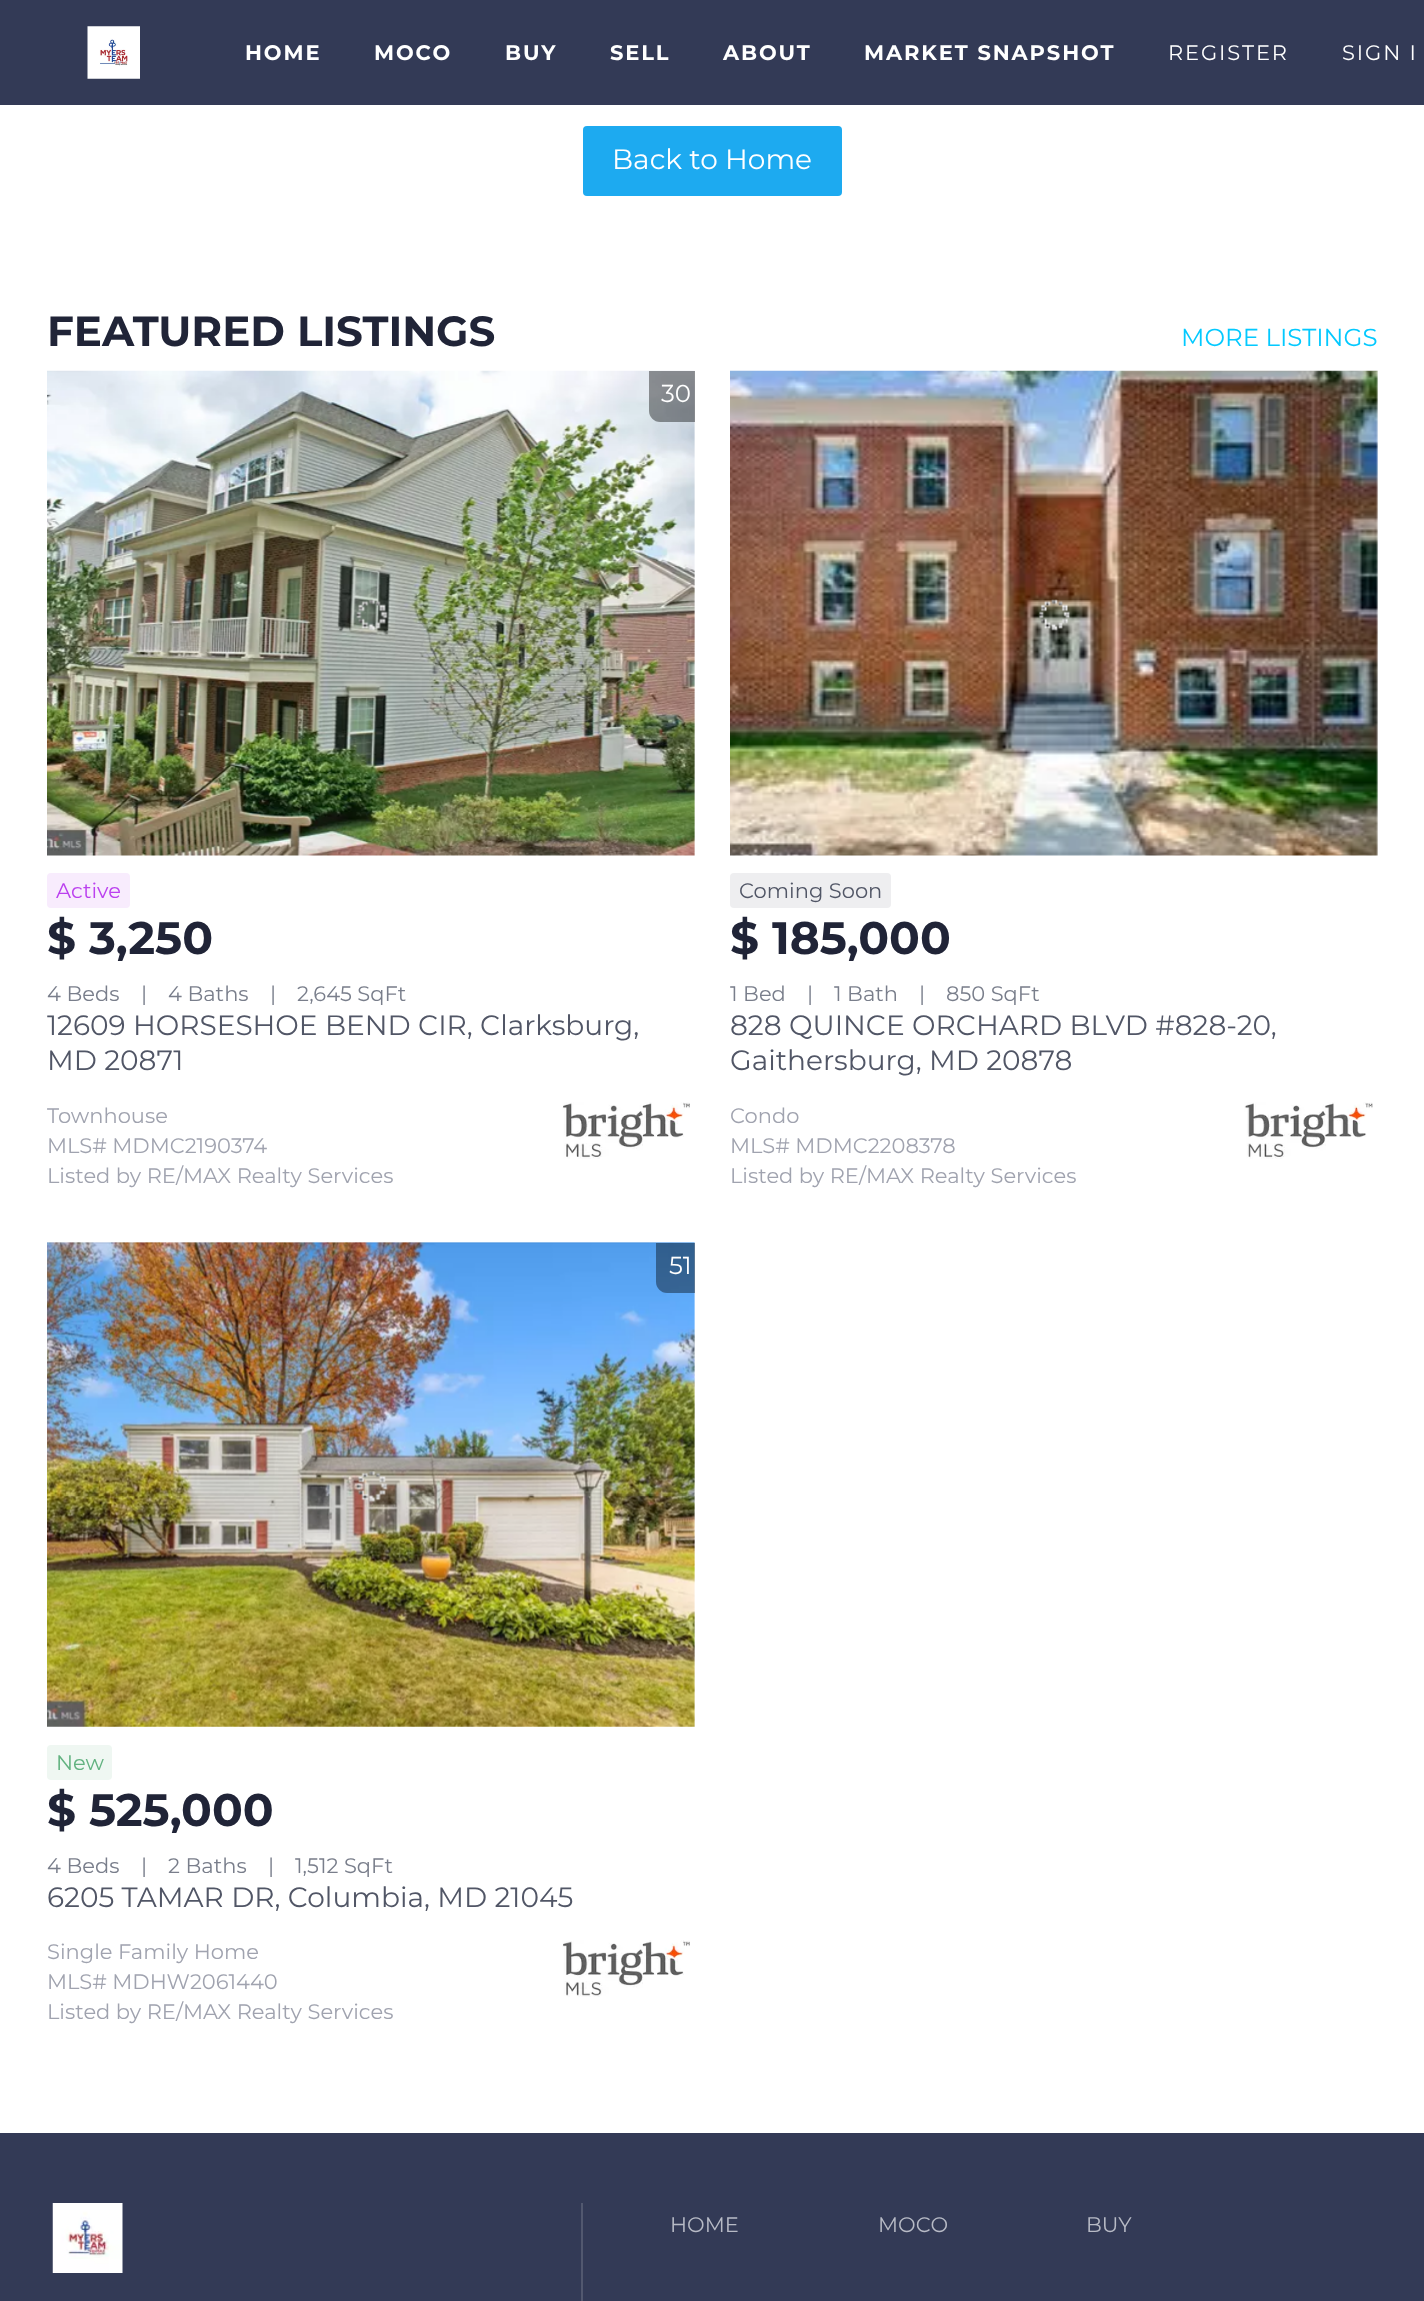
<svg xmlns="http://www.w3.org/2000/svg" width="1424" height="2301">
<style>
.a{font:bold 21px Montserrat;letter-spacing:1.9px;fill:#fff}
.b{font:21px Montserrat;letter-spacing:1.9px;fill:#fff}
.c{font:28px Montserrat;fill:#fff}
.d{font:bold 42px Montserrat;fill:#202437}
.e{font:24.5px Montserrat;fill:#03c9ff}
.f{font:24.5px Montserrat;fill:#fff}
.g{font:21px Montserrat;fill:#bb40ef}
.h{font:bold 45.5px Montserrat;fill:#202437}
.i{font:21px Montserrat;fill:#797e8b}
.j{font:28px Montserrat;fill:#515666}
.k{font:21px Montserrat;fill:#a0a3af}
.l{font:21px Montserrat;fill:#515666}
.m{font:21px Montserrat;fill:#62b280}
.n{font:21px Montserrat;fill:#b7bac5}
</style>
<rect width="100%" height="100%" fill="#fff"/>
<path fill="#333a56" d="M0 0h1424v105H0z"/>
<image href="1.png" x="87" y="26" width="53" height="53"/>
<rect fill="#1daaf0" x="583" y="126" width="259" height="70" rx="4"/>
<image href="2.png" x="47" y="370" width="648" height="486"/>
<image href="3.png" x="356" y="599" width="32" height="32"/>
<path fill="#00000066" d="M649 371h46v51h-35c-6 0-11-5-11-11z"/>
<rect fill="#f8ecfd" x="47" y="873" width="83" height="35" rx="4"/>
<image href="4.png" x="562" y="1102" width="128" height="57"/>
<image href="5.png" x="730" y="370" width="648" height="486"/>
<image href="6.png" x="1039" y="599" width="31" height="32"/>
<rect fill="#eeeef0" x="730" y="873" width="161" height="35" rx="4"/>
<image href="7.png" x="1244" y="1102" width="129" height="57"/>
<image href="8.png" x="47" y="1242" width="648" height="485"/>
<image href="9.png" x="356" y="1471" width="32" height="32"/>
<path fill="#00000066" d="M656 1243h39v50h-28c-6 0-11-5-11-11z"/>
<rect fill="#eff7f2" x="47" y="1745" width="65" height="35" rx="4"/>
<image href="10.png" x="562" y="1940" width="128" height="57"/>
<path fill="#333a56" d="M0 2133h1424v168H0z"/>
<image href="11.png" x="52" y="2203" width="71" height="70"/>
<path fill="#52586f" d="M581 2203h2v98H581z"/>
<text class="a" x="245" y="60">HOME</text>
<text class="a" x="374" y="60">MOCO</text>
<text class="a" x="505" y="60">BUY</text>
<text class="a" x="610" y="60">SELL</text>
<text class="a" x="723" y="60">ABOUT</text>
<text class="a" x="864" y="60">MARKET SNAPSHOT</text>
<text class="b" x="1168" y="60">REGISTER</text>
<text class="b" x="1342" y="60">SIGN I</text>
<text class="c" x="612" y="169">Back to Home</text>
<text class="d" x="47" y="346">FEATURED LISTINGS</text>
<text class="e" x="1181" y="346">MORE LISTINGS</text>
<text class="f" x="661" y="402">30</text>
<text class="g" x="56" y="898">Active</text>
<text class="h" x="47" y="954">$ 3,250</text>
<text class="i" x="47" y="1001">4 Beds</text>
<text class="i" x="141" y="1001">|</text>
<text class="i" x="168" y="1001">4 Baths</text>
<text class="i" x="270" y="1001">|</text>
<text class="i" x="297" y="1001">2,645 SqFt</text>
<text class="j" x="47" y="1035">12609 HORSESHOE BEND CIR, Clarksburg,</text>
<text class="j" x="47" y="1070">MD 20871</text>
<text class="k" x="47" y="1123">Townhouse</text>
<text class="k" x="47" y="1153">MLS# MDMC2190374</text>
<text class="k" x="47" y="1183">Listed by RE/MAX Realty Services</text>
<text class="l" x="739" y="898">Coming Soon</text>
<text class="h" x="730" y="954">$ 185,000</text>
<text class="i" x="730" y="1001">1 Bed</text>
<text class="i" x="807" y="1001">|</text>
<text class="i" x="834" y="1001">1 Bath</text>
<text class="i" x="919" y="1001">|</text>
<text class="i" x="946" y="1001">850 SqFt</text>
<text class="j" x="730" y="1035">828 QUINCE ORCHARD BLVD #828-20,</text>
<text class="j" x="730" y="1070">Gaithersburg, MD 20878</text>
<text class="k" x="730" y="1123">Condo</text>
<text class="k" x="730" y="1153">MLS# MDMC2208378</text>
<text class="k" x="730" y="1183">Listed by RE/MAX Realty Services</text>
<text class="f" x="669" y="1274">51</text>
<text class="m" x="56" y="1770">New</text>
<text class="h" x="47" y="1826">$ 525,000</text>
<text class="i" x="47" y="1873">4 Beds</text>
<text class="i" x="141" y="1873">|</text>
<text class="i" x="168" y="1873">2 Baths</text>
<text class="i" x="268" y="1873">|</text>
<text class="i" x="295" y="1873">1,512 SqFt</text>
<text class="j" x="47" y="1907">6205 TAMAR DR, Columbia, MD 21045</text>
<text class="k" x="47" y="1959">Single Family Home</text>
<text class="k" x="47" y="1989">MLS# MDHW2061440</text>
<text class="k" x="47" y="2019">Listed by RE/MAX Realty Services</text>
<text class="n" x="670" y="2232">HOME</text>
<text class="n" x="878" y="2232">MOCO</text>
<text class="n" x="1086" y="2232">BUY</text>
</svg>
